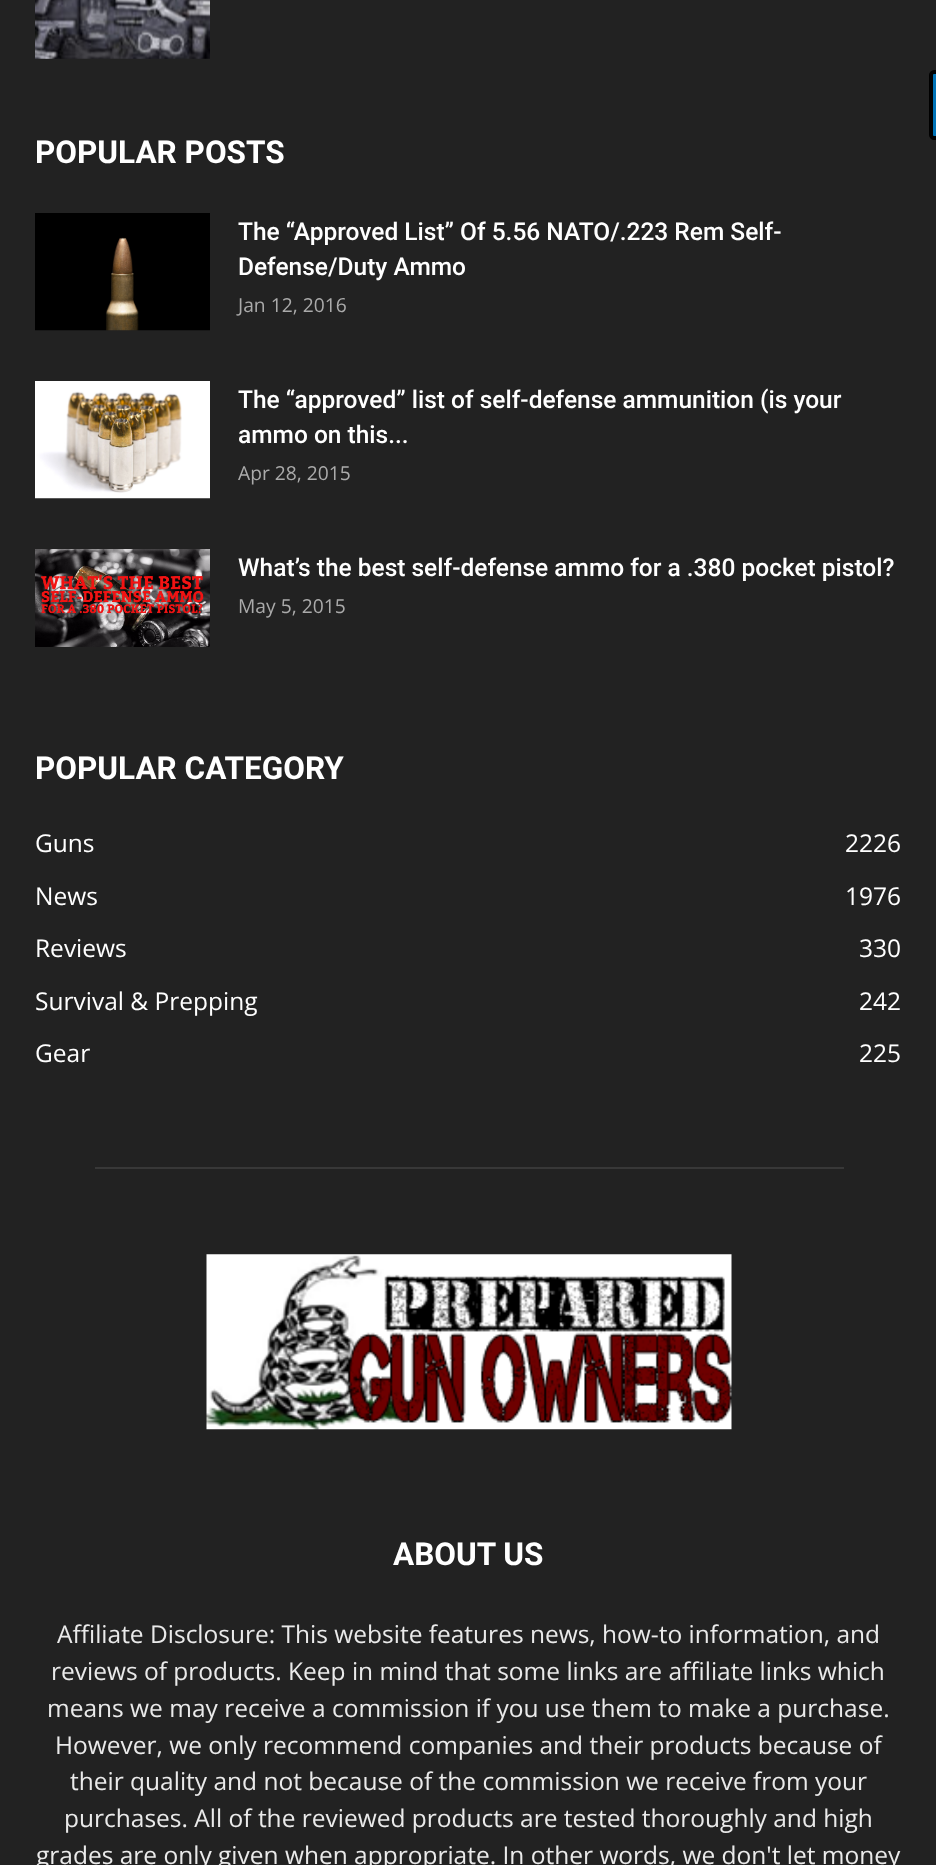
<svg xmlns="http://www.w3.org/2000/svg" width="936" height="1865">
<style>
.a{font:bold 31.5px Roboto;fill:#fff}
.b{font:500 24.5px Roboto;fill:#fff}
.c{font:19.25px Open Sans;fill:#aaa}
.d{font:24.5px Open Sans;fill:#fff}
.e{font:24.5px Open Sans;fill:#eaeaea}
</style>
<rect width="100%" height="100%" fill="#222"/>
<path fill="#0073b7" stroke="#000" stroke-width="4" d="M934 72h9v66h-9c-1.5 0-3-1.5-3-3v-60c0-1.5 1.5-3 3-3z"/>
<image href="1.png" x="35" y="0" width="175" height="59"/>
<image href="2.png" x="35" y="213" width="175" height="118"/>
<image href="3.png" x="35" y="381" width="175" height="118"/>
<image href="4.png" x="35" y="549" width="175" height="98"/>
<path fill="#383838" d="M95 1167h749v2H95z"/>
<image href="5.png" x="206" y="1254" width="526" height="176"/>
<text class="a" x="35" y="163">POPULAR POSTS</text>
<text class="b" x="238" y="240">The “Approved List” Of 5.56 NATO/.223 Rem Self-</text>
<text class="b" x="238" y="275">Defense/Duty Ammo</text>
<text class="c" x="238" y="312">Jan 12, 2016</text>
<text class="b" x="238" y="408">The “approved” list of self-defense ammunition (is your</text>
<text class="b" x="238" y="443">ammo on this...</text>
<text class="c" x="238" y="480">Apr 28, 2015</text>
<text class="b" x="238" y="576">What’s the best self-defense ammo for a .380 pocket pistol?</text>
<text class="c" x="238" y="613">May 5, 2015</text>
<text class="a" x="35" y="779">POPULAR CATEGORY</text>
<text class="d" x="35" y="852">Guns</text>
<text class="d" x="845" y="852">2226</text>
<text class="d" x="35" y="905">News</text>
<text class="d" x="845" y="905">1976</text>
<text class="d" x="35" y="957">Reviews</text>
<text class="d" x="859" y="957">330</text>
<text class="d" x="35" y="1010">Survival &amp; Prepping</text>
<text class="d" x="859" y="1010">242</text>
<text class="d" x="35" y="1062">Gear</text>
<text class="d" x="859" y="1062">225</text>
<text class="a" x="393" y="1565">ABOUT US</text>
<text class="e" x="57" y="1643">Affiliate Disclosure: This website features news, how-to information, and</text>
<text class="e" x="51" y="1680">reviews of products. Keep in mind that some links are affiliate links which</text>
<text class="e" x="47" y="1717">means we may receive a commission if you use them to make a purchase.</text>
<text class="e" x="55" y="1754">However, we only recommend companies and their products because of</text>
<text class="e" x="70" y="1790">their quality and not because of the commission we receive from your</text>
<text class="e" x="64" y="1827">purchases. All of the reviewed products are tested thoroughly and high</text>
<text class="e" x="36" y="1864">grades are only given when appropriate. In other words, we don't let money</text>
</svg>
